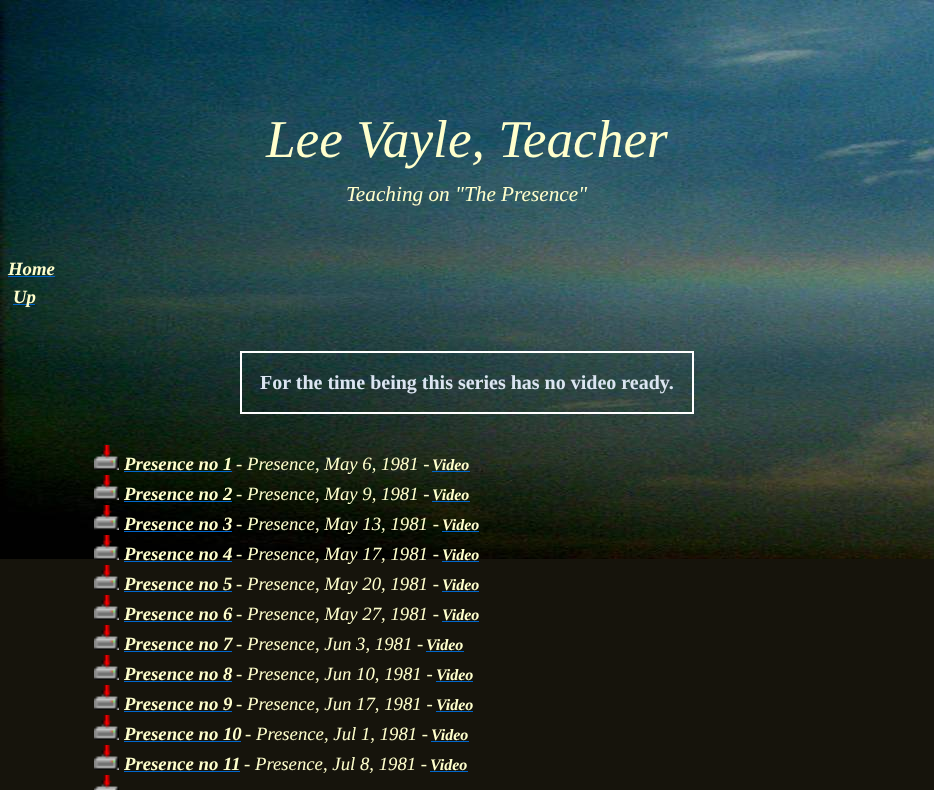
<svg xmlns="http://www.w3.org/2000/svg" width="934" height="790">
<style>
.a{font:italic 53.25px Liberation Serif;fill:#ffc}
.b{font:italic 21.25px Liberation Serif;fill:#ffc}
.c{font:italic bold 18.75px Liberation Serif;fill:#ffc}
.d{font:bold 20px Liberation Serif;fill:#dbe5f1}
.e{font:italic 18.75px Liberation Serif;fill:#ffc}
.f{font:italic bold 16px Liberation Serif;fill:#ffc}
</style>
<rect width="100%" height="100%" fill="#16140c"/>
<image href="1.png" x="0" y="0" width="934" height="559"/>
<path fill="#06c" d="M8 276h47v1H8z"/>
<path fill="#06c" d="M13 304h22v1H13z"/>
<path fill="none" stroke="#fff" stroke-width="2" d="M241 352h452v61H241z"/>
<image href="2.png" x="94" y="445" width="25" height="25"/>
<path fill="#06c" d="M124 471h108v1H124z"/>
<path fill="#06c" d="M432 471h38v1H432z"/>
<image href="3.png" x="94" y="475" width="25" height="25"/>
<path fill="#06c" d="M124 501h108v1H124z"/>
<path fill="#06c" d="M432 501h38v1H432z"/>
<image href="4.png" x="94" y="505" width="25" height="25"/>
<path fill="#06c" d="M124 531h108v1H124z"/>
<path fill="#06c" d="M442 531h37v1H442z"/>
<image href="5.png" x="94" y="535" width="25" height="25"/>
<path fill="#06c" d="M124 561h108v1H124z"/>
<path fill="#06c" d="M442 561h37v1H442z"/>
<image href="6.png" x="94" y="565" width="25" height="25"/>
<path fill="#06c" d="M124 591h108v1H124z"/>
<path fill="#06c" d="M442 591h37v1H442z"/>
<image href="6.png" x="94" y="595" width="25" height="25"/>
<path fill="#06c" d="M124 621h108v1H124z"/>
<path fill="#06c" d="M442 621h37v1H442z"/>
<image href="6.png" x="94" y="625" width="25" height="25"/>
<path fill="#06c" d="M124 651h108v1H124z"/>
<path fill="#06c" d="M426 651h38v1H426z"/>
<image href="6.png" x="94" y="655" width="25" height="25"/>
<path fill="#06c" d="M124 681h108v1H124z"/>
<path fill="#06c" d="M436 681h37v1H436z"/>
<image href="6.png" x="94" y="685" width="25" height="25"/>
<path fill="#06c" d="M124 711h108v1H124z"/>
<path fill="#06c" d="M436 711h37v1H436z"/>
<image href="6.png" x="94" y="715" width="25" height="25"/>
<path fill="#06c" d="M124 741h117v1H124z"/>
<path fill="#06c" d="M431 741h38v1H431z"/>
<image href="7.png" x="94" y="745" width="25" height="25"/>
<path fill="#06c" d="M124 771h116v1H124z"/>
<path fill="#06c" d="M430 771h38v1H430z"/>
<image href="8.png" x="94" y="775" width="25" height="15"/>
<text class="a" x="266" y="157">Lee Vayle, Teacher</text>
<text class="b" x="346" y="201">Teaching on "The Presence"</text>
<text class="c" x="8" y="275">Home</text>
<text class="c" x="13" y="303">Up</text>
<text class="d" x="260" y="389">For the time being this series has no video ready.</text>
<text class="c" x="124" y="470">Presence no 1</text>
<text class="e" x="236" y="470">- Presence, May 6, 1981 -</text>
<text class="f" x="432" y="470">Video</text>
<text class="c" x="124" y="500">Presence no 2</text>
<text class="e" x="236" y="500">- Presence, May 9, 1981 -</text>
<text class="f" x="432" y="500">Video</text>
<text class="c" x="124" y="530">Presence no 3</text>
<text class="e" x="236" y="530">- Presence, May 13, 1981 -</text>
<text class="f" x="442" y="530">Video</text>
<text class="c" x="124" y="560">Presence no 4</text>
<text class="e" x="236" y="560">- Presence, May 17, 1981 -</text>
<text class="f" x="442" y="560">Video</text>
<text class="c" x="124" y="590">Presence no 5</text>
<text class="e" x="236" y="590">- Presence, May 20, 1981 -</text>
<text class="f" x="442" y="590">Video</text>
<text class="c" x="124" y="620">Presence no 6</text>
<text class="e" x="236" y="620">- Presence, May 27, 1981 -</text>
<text class="f" x="442" y="620">Video</text>
<text class="c" x="124" y="650">Presence no 7</text>
<text class="e" x="236" y="650">- Presence, Jun 3, 1981 -</text>
<text class="f" x="426" y="650">Video</text>
<text class="c" x="124" y="680">Presence no 8</text>
<text class="e" x="236" y="680">- Presence, Jun 10, 1981 -</text>
<text class="f" x="436" y="680">Video</text>
<text class="c" x="124" y="710">Presence no 9</text>
<text class="e" x="236" y="710">- Presence, Jun 17, 1981 -</text>
<text class="f" x="436" y="710">Video</text>
<text class="c" x="124" y="740">Presence no 10</text>
<text class="e" x="245" y="740">- Presence, Jul 1, 1981 -</text>
<text class="f" x="431" y="740">Video</text>
<text class="c" x="124" y="770">Presence no 11</text>
<text class="e" x="244" y="770">- Presence, Jul 8, 1981 -</text>
<text class="f" x="430" y="770">Video</text>
</svg>
